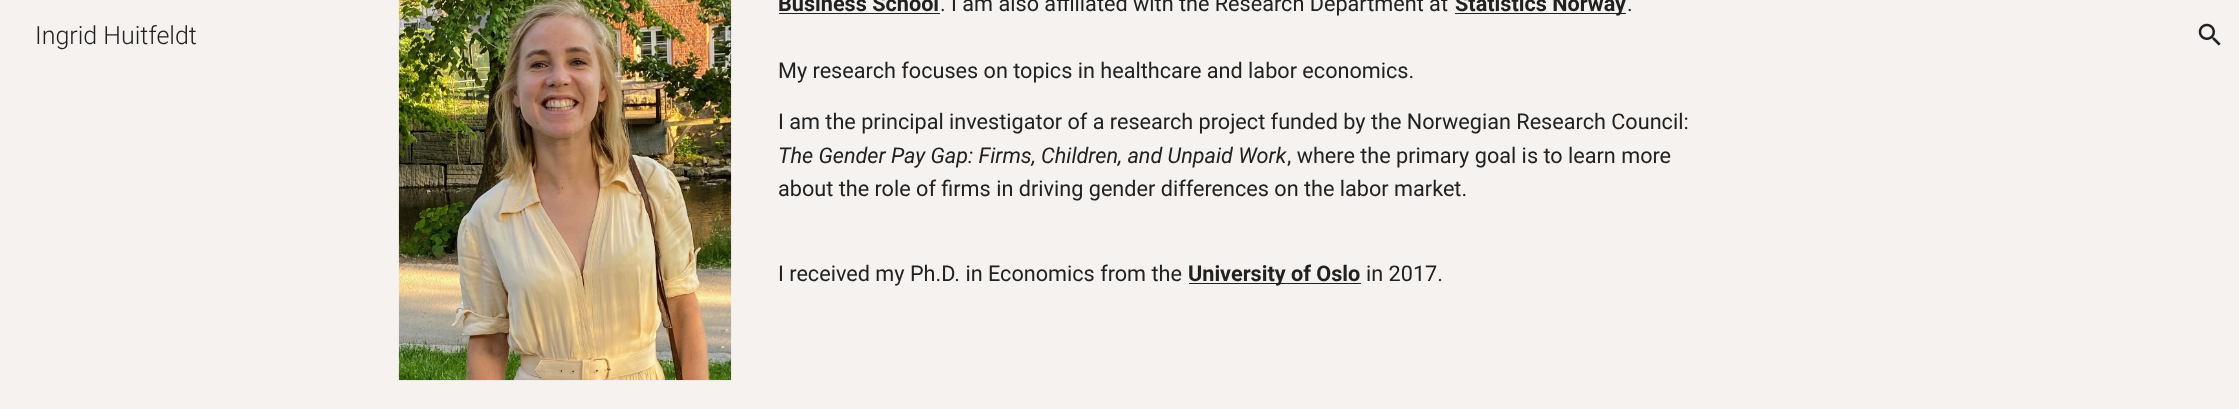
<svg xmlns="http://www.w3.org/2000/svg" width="2239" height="409">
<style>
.a{font:300 25px Roboto;fill:#212121}
.b{font:bold 21.65px Roboto;fill:#212121}
.c{font:21.65px Roboto;fill:#212121}
.d{font:italic 21.65px Roboto;fill:#212121}
</style>
<rect width="100%" height="100%" fill="#f5f2f0"/>
<image href="1.png" x="2198" y="23" width="23" height="23"/>
<image href="2.png" x="398" y="0" width="334" height="381"/>
<path fill="#212121" d="M779 13h161v1H779z"/>
<path fill="#212121" d="M1455 13h171v1H1455z"/>
<path fill="#212121" d="M1189 283h172v1H1189z"/>
<text class="a" x="35" y="44">Ingrid Huitfeldt</text>
<text class="b" x="778" y="11">Business School</text>
<text class="c" x="940" y="11">. I am also affiliated with the Research Department at</text>
<text class="b" x="1455" y="11">Statistics Norway</text>
<text class="c" x="1627" y="11">.</text>
<text class="c" x="778" y="78">My research focuses on topics in healthcare and labor economics.</text>
<text class="c" x="778" y="129">I am the principal investigator of a research project funded by the Norwegian Research Council:</text>
<text class="d" x="778" y="163">The Gender Pay Gap: Firms, Children, and Unpaid Work</text>
<text class="c" x="1287" y="163">, where the primary goal is to learn more</text>
<text class="c" x="778" y="196">about the role of firms in driving gender differences on the labor market.</text>
<text class="c" x="778" y="281">I received my Ph.D. in Economics from the</text>
<text class="b" x="1188" y="281">University of Oslo</text>
<text class="c" x="1366" y="281">in 2017.</text>
</svg>
